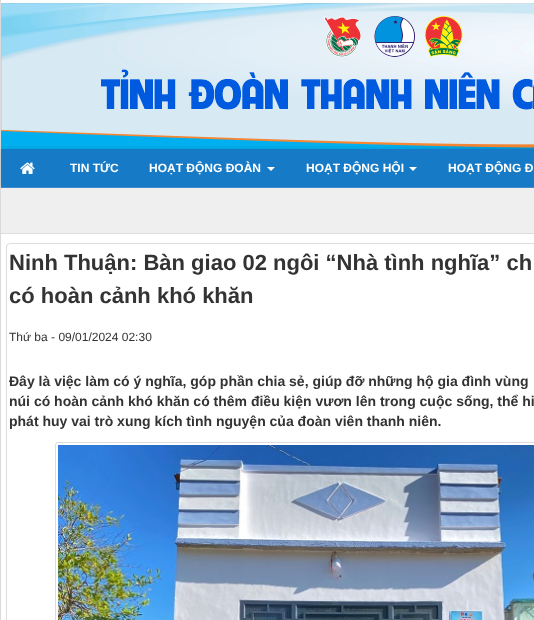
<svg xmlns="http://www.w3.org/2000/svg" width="534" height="620">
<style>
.a{font:bold 12px Liberation Sans;fill:#fff}
.b{font:bold 22px Liberation Sans;fill:#333}
.c{font:12px Liberation Sans;fill:#333}
.d{font:bold 14px Liberation Sans;fill:#333}
</style>
<rect width="100%" height="100%" fill="#dadada"/>
<path fill="#00000026" filter="blur(2px)" d="M0 0h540v149H0z"/>
<path fill="#fff" d="M1 0h533v131H1z"/>
<path fill="#dadada" d="M0 0h1v149H0z"/>
<image href="1.png" x="1" y="3" width="533" height="146"/>
<rect fill="#00000026" filter="blur(2px)" x="1" y="149" width="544" height="39" rx="5"/>
<path fill="#00000026" filter="blur(2px)" d="M0 188h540v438H0z"/>
<path fill="#167ac6" d="M1 149h533v38H1z"/>
<path fill="#428bca" d="M1 187h533v1H1z"/>
<image href="2.png" x="20" y="162" width="15" height="12"/>
<path fill="#fff" d="M267 167h8l-4 4z"/>
<path fill="#fff" d="M409 167h8l-4 4z"/>
<path fill="#fff" d="M1 234h533v386H1z"/>
<path fill="#dadada" d="M0 188h1v432H0z"/>
<path fill="#ddd" d="M1 233h533v1H1z"/>
<path fill="#efefef" d="M1 188h533v45H1z"/>
<rect fill="none" stroke="#ddd" x="6.5" y="243.5" width="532" height="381" rx="3.5"/>
<rect fill="none" stroke="#dcdcdc" x="55.5" y="442.5" width="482" height="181" rx="2.5"/>
<image href="3.png" x="58" y="445" width="476" height="175"/>
<text class="a" x="70" y="172">TIN TỨC</text>
<text class="a" x="149" y="172">HOẠT ĐỘNG ĐOÀN</text>
<text class="a" x="306" y="172">HOẠT ĐỘNG HỘI</text>
<text class="a" x="448" y="172">HOẠT ĐỘNG Đ</text>
<text class="b" x="9" y="270">Ninh Thuận: Bàn giao 02 ngôi “Nhà tình nghĩa” ch</text>
<text class="b" x="9" y="303">có hoàn cảnh khó khăn</text>
<text class="c" x="9" y="341">Thứ ba - 09/01/2024 02:30</text>
<text class="d" x="9" y="386">Đây là việc làm có ý nghĩa, góp phần chia sẻ, giúp đỡ những hộ gia đình vùng</text>
<text class="d" x="9" y="406">núi có hoàn cảnh khó khăn có thêm điều kiện vươn lên trong cuộc sống, thể hi</text>
<text class="d" x="9" y="426">phát huy vai trò xung kích tình nguyện của đoàn viên thanh niên.</text>
</svg>
